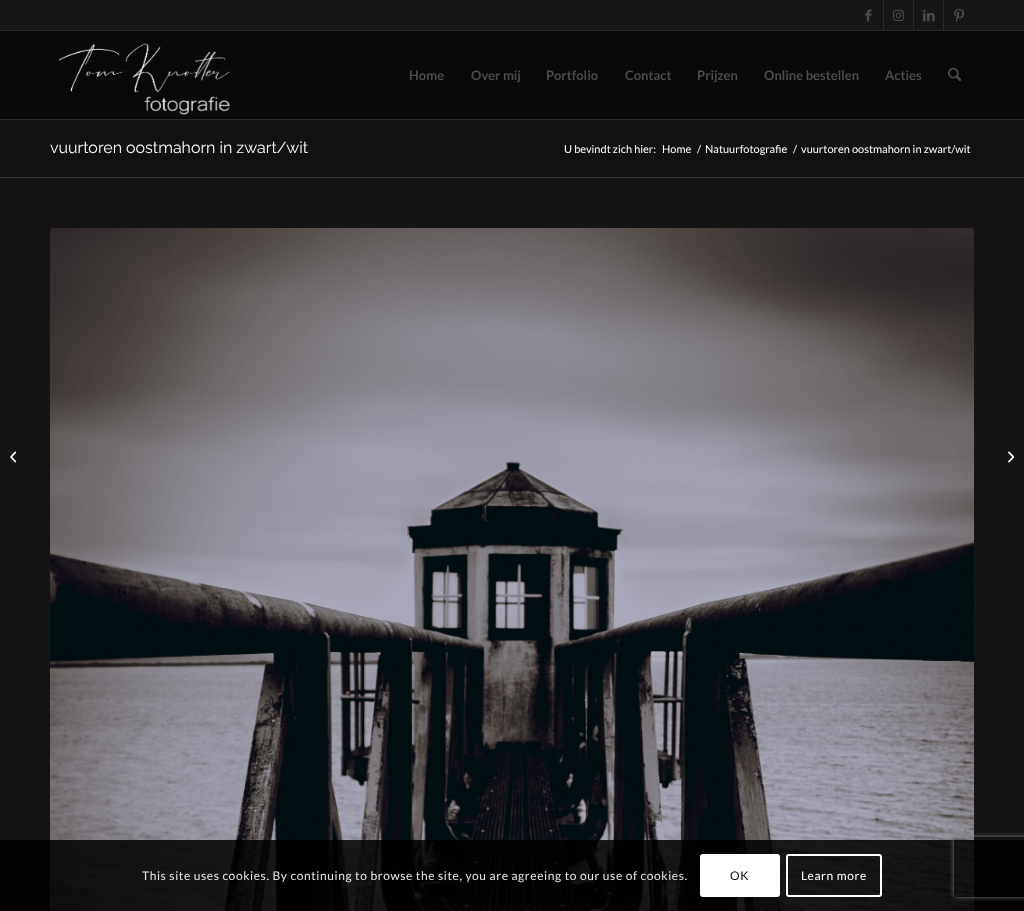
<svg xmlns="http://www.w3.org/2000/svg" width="1024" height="911">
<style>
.a{font:bold 13px Lato;fill:#4d4d4d}
.b{font:100 16px Raleway;fill:#fff}
.c{font:11px Lato;fill:#fff}
.d{font:12px Lato;letter-spacing:0.6px;fill:#e6e6e6}
.e{font:12px Lato;letter-spacing:0.6px;fill:#000}
.f{font:12px Lato;letter-spacing:0.6px;fill:#fff}
</style>
<defs>
<clipPath id="clip1"><path d="M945 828h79v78h-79zm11 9h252c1 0 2 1 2 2v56c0 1-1 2-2 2h-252c-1 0-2-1-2-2v-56c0-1 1-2 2-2z" clip-rule="evenodd"/></clipPath>
</defs>
<rect width="100%" height="100%" fill="#080808"/>
<path fill="#171717" d="M0 0h1024v30H0z"/>
<path fill="#2b2b2b" d="M0 30h1024v1H0z"/>
<path fill="#2b2b2b" d="M883 0h1v30H883z"/>
<image href="1.png" x="865" y="9" width="7" height="13"/>
<path fill="#2b2b2b" d="M913 0h1v30H913z"/>
<image href="2.png" x="893" y="9" width="12" height="12"/>
<path fill="#2b2b2b" d="M943 0h1v30H943z"/>
<image href="3.png" x="923" y="9" width="12" height="13"/>
<image href="4.png" x="954" y="9" width="11" height="13"/>
<path fill="#2b2b2b" d="M0 119h1024v1H0z"/>
<image href="5.png" x="58" y="43" width="172" height="72"/>
<image href="6.png" x="948" y="67" width="13" height="15"/>
<path fill="#111" d="M0 120h1024v57H0z"/>
<path fill="#141414" d="M0 178h1024v733H0z"/>
<path fill="#363636" d="M0 177h1024v1H0z"/>
<image href="7.png" x="50" y="228" width="924" height="683"/>
<image href="8.png" x="10" y="451" width="6" height="12"/>
<image href="9.png" x="1008" y="451" width="6" height="12"/>
<path fill="#000000d9" d="M0 840h1024v71H0z"/>
<rect fill="#fff" x="700" y="854" width="80" height="43" rx="3"/>
<rect fill="none" stroke="#fff" stroke-width="2" x="787" y="855" width="94" height="41" rx="2"/>
<g clip-path="url(#clip1)">
<rect fill="#808080" filter="blur(2.5px)" x="954" y="837" width="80" height="60" rx="2"/>
</g>
<text class="a" x="409" y="80">Home</text>
<text class="a" x="471" y="80">Over mij</text>
<text class="a" x="546" y="80">Portfolio</text>
<text class="a" x="625" y="80">Contact</text>
<text class="a" x="697" y="80">Prijzen</text>
<text class="a" x="764" y="80">Online bestellen</text>
<text class="a" x="885" y="80">Acties</text>
<text class="b" x="50" y="153">vuurtoren oostmahorn in zwart/wit</text>
<text class="c" x="564" y="153">U bevindt zich hier:</text>
<text class="c" x="662" y="153">Home</text>
<text class="c" x="697" y="153">/</text>
<text class="c" x="705" y="153">Natuurfotografie</text>
<text class="c" x="793" y="153">/</text>
<text class="c" x="801" y="153">vuurtoren oostmahorn in zwart/wit</text>
<text class="d" x="142" y="880">This site uses cookies. By continuing to browse the site, you are agreeing to our use of cookies.</text>
<text class="e" x="730" y="880">OK</text>
<text class="f" x="801" y="880">Learn more</text>
</svg>
